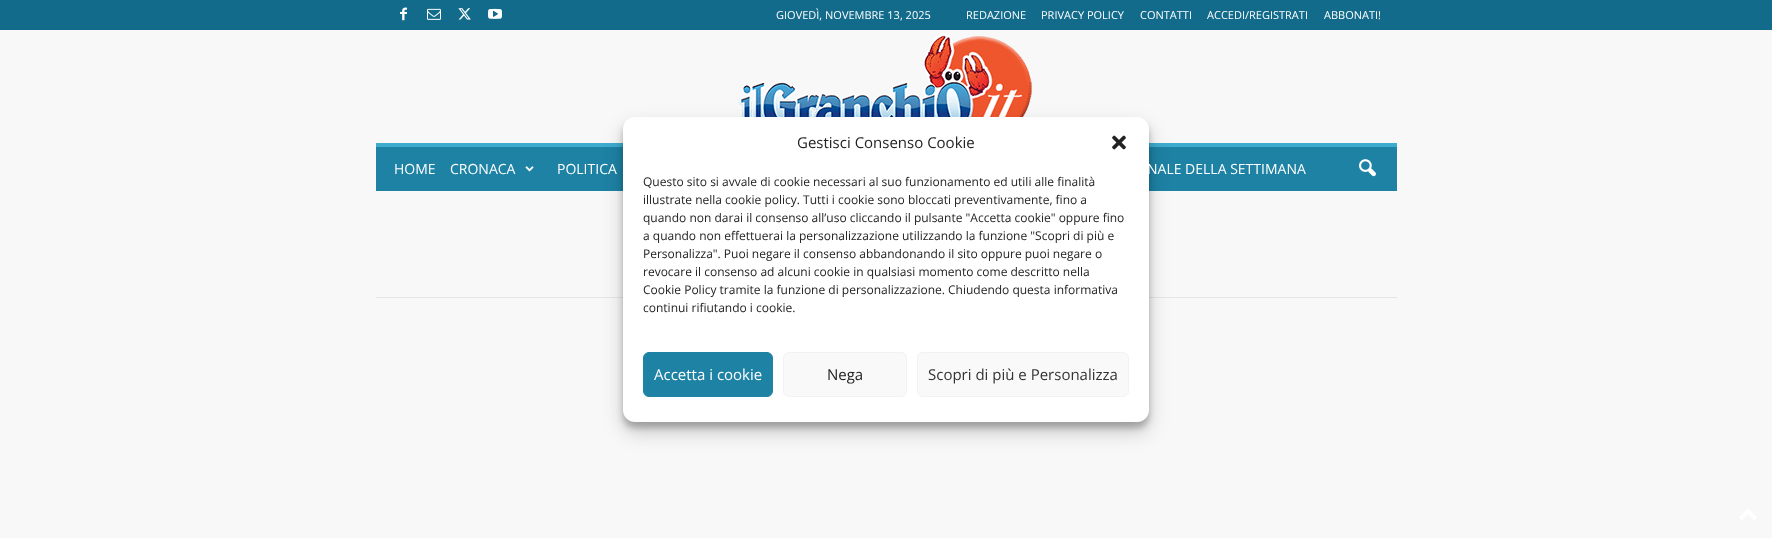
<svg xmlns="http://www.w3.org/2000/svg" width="1772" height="538">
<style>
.a{font:11px Open Sans;fill:#fff}
.b{font:14px Open Sans;fill:#fff}
.c{font:15px Open Sans;fill:#222}
.d{font:12px Open Sans;fill:#222}
.e{font:15px Open Sans;fill:#fff}
.f{font:15px Open Sans;fill:#333}
</style>
<rect width="100%" height="100%" fill="#f8f8f8"/>
<path fill="#126b8a" d="M0 0h1772v30H0z"/>
<image href="1.png" x="400" y="7" width="7" height="14"/>
<image href="2.png" x="427" y="8" width="14" height="12"/>
<image href="3.png" x="458" y="8" width="13" height="12"/>
<image href="4.png" x="488" y="8" width="14" height="11"/>
<image href="5.png" x="737" y="33" width="296" height="84"/>
<path fill="#1e82a4" d="M376 147h1021v44H376z"/>
<path fill="#3fabcf" d="M376 143h1021v4H376z"/>
<image href="6.png" x="525" y="166" width="9" height="6"/>
<image href="7.png" x="1359" y="159" width="17" height="18"/>
<path fill="#e6e6e6" d="M376 297h1021v1H376z"/>
<rect fill="#0000003b" filter="blur(3px)" x="623" y="123" width="526" height="305" rx="12"/>
<rect fill="#00000030" filter="blur(10px)" x="623" y="127" width="526" height="305" rx="12"/>
<rect fill="#fff" x="623" y="117" width="526" height="305" rx="12"/>
<image href="8.png" x="1112" y="135" width="14" height="15"/>
<rect fill="#1e82a4" stroke="#1e82a4" x="643.5" y="352.5" width="129" height="44" rx="5.5"/>
<rect fill="#f9f9f9" stroke="#f2f2f2" x="783.5" y="352.5" width="123" height="44" rx="5.5"/>
<rect fill="#f9f9f9" stroke="#f2f2f2" x="917.5" y="352.5" width="211" height="44" rx="5.5"/>
<image href="9.png" x="1739" y="509" width="18" height="11"/>
<text class="a" x="776" y="19">GIOVEDÌ, NOVEMBRE 13, 2025</text>
<text class="a" x="966" y="19">REDAZIONE</text>
<text class="a" x="1041" y="19">PRIVACY POLICY</text>
<text class="a" x="1140" y="19">CONTATTI</text>
<text class="a" x="1207" y="19">ACCEDI/REGISTRATI</text>
<text class="a" x="1324" y="19">ABBONATI!</text>
<text class="b" x="394" y="174">HOME</text>
<text class="b" x="450" y="174">CRONACA</text>
<text class="b" x="557" y="174">POLITICA</text>
<text class="b" x="1147" y="174">NALE DELLA SETTIMANA</text>
<text class="c" x="797" y="148">Gestisci Consenso Cookie</text>
<text class="d" x="643" y="186">Questo sito si avvale di cookie necessari al suo funzionamento ed utili alle finalità</text>
<text class="d" x="643" y="204">illustrate nella cookie policy. Tutti i cookie sono bloccati preventivamente, fino a</text>
<text class="d" x="643" y="222">quando non darai il consenso all’uso cliccando il pulsante "Accetta cookie" oppure fino</text>
<text class="d" x="643" y="240">a quando non effettuerai la personalizzazione utilizzando la funzione "Scopri di più e</text>
<text class="d" x="643" y="258">Personalizza". Puoi negare il consenso abbandonando il sito oppure puoi negare o</text>
<text class="d" x="643" y="276">revocare il consenso ad alcuni cookie in qualsiasi momento come descritto nella</text>
<text class="d" x="643" y="294">Cookie Policy tramite la funzione di personalizzazione. Chiudendo questa informativa</text>
<text class="d" x="643" y="312">continui rifiutando i cookie.</text>
<text class="e" x="654" y="380">Accetta i cookie</text>
<text class="c" x="827" y="380">Nega</text>
<text class="f" x="928" y="380">Scopri di più e Personalizza</text>
</svg>
